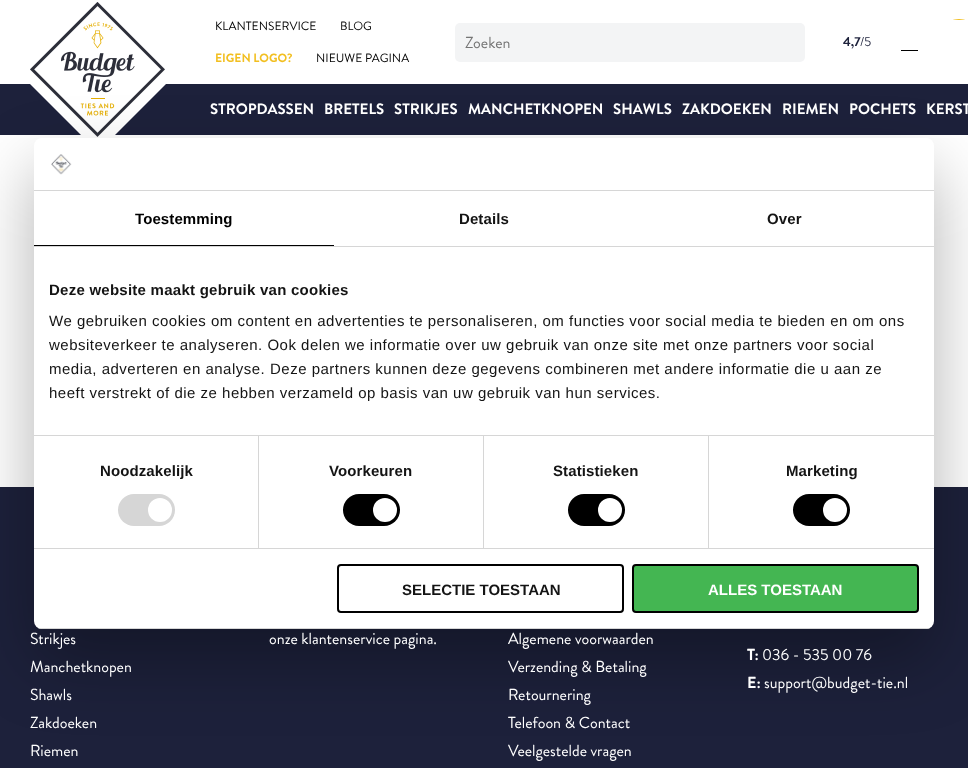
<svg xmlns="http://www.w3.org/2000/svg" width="968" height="768">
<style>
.a{font:12px Brandon Grotesque;fill:#000}
.b{font:bold 12px Brandon Grotesque;fill:#f2bf21}
.c{font:16px Brandon Grotesque;fill:#757575}
.d{font:bold 13px Brandon Grotesque;fill:#1d213b}
.e{font:13px Brandon Grotesque;fill:#1d213b}
.f{font:bold 15px Brandon Grotesque;fill:#fff}
.g{font:bold 15px Liberation Sans;letter-spacing:0.1px;fill:#000}
.h{font:bold 15px Liberation Sans;letter-spacing:0.1px;fill:#141414}
.i{font:bold 15px Liberation Sans;letter-spacing:0.25px;fill:#141414}
.j{font:15px Liberation Sans;letter-spacing:0.5px;fill:#141414}
.k{font:bold 15px Liberation Sans;fill:#141414}
.l{font:bold 15px Liberation Sans;fill:#fff}
.m{font:16px Brandon Grotesque;fill:#fff}
.n{font:bold 16px Brandon Grotesque;fill:#fff}
</style>
<defs>
<clipPath id="clip1"><rect x="34" y="138" width="900" height="491" rx="8"/></clipPath>
</defs>
<rect width="100%" height="100%" fill="#fff"/>
<path fill="#1d213b" d="M0 84h968v51H0z"/>
<path fill="#fff" d="M-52 2h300l-150 150z"/>
<image href="1.png" x="30" y="2" width="135" height="135"/>
<rect fill="#f3f4f5" x="455" y="23" width="350" height="39" rx="5"/>
<ellipse fill="#f2bf21" cx="959" cy="19.5" rx="6" ry="0.5"/>
<path fill="#000" d="M901 50h17v1H901z"/>
<path fill="#1d213b" d="M0 487h968v281H0z"/>
<rect fill="#0000004d" filter="blur(34px)" x="34" y="170" width="900" height="491" rx="8"/>
<rect fill="#fff" x="34" y="138" width="900" height="491" rx="8"/>
<path fill="#d6d6d6" d="M34 190h900v1H34z"/>
<image href="2.png" x="51" y="154" width="21" height="21"/>
<path fill="#d6d6d6" d="M34 246h900v1H34z"/>
<path fill="#000" d="M34 245h300v1H34z"/>
<path fill="#d6d6d6" d="M34 435h900v1H34z"/>
<path fill="#d6d6d6" d="M34 548h900v1H34z"/>
<path fill="#d6d6d6" d="M258 436h1v112H258z"/>
<rect fill="#d6d6d6" x="118" y="494" width="57" height="32" rx="16"/>
<circle fill="#fff" cx="160" cy="510" r="12"/>
<path fill="#d6d6d6" d="M483 436h1v112H483z"/>
<rect fill="#000" x="343" y="494" width="57" height="32" rx="16"/>
<circle fill="#fff" cx="385" cy="510" r="12"/>
<path fill="#d6d6d6" d="M708 436h1v112H708z"/>
<rect fill="#000" x="568" y="494" width="57" height="32" rx="16"/>
<circle fill="#fff" cx="610" cy="510" r="12"/>
<rect fill="#000" x="793" y="494" width="57" height="32" rx="16"/>
<circle fill="#fff" cx="835" cy="510" r="12"/>
<g clip-path="url(#clip1)">
<path fill="#d6d6d6" d="M34 628h900v1H34z"/>
</g>
<rect fill="none" stroke="#000" stroke-width="2" x="338" y="565" width="285" height="47" rx="3"/>
<rect fill="#44b652" stroke="#000" stroke-width="2" x="633" y="565" width="285" height="47" rx="3"/>
<text class="a" x="215" y="30">KLANTENSERVICE</text>
<text class="a" x="340" y="30">BLOG</text>
<text class="b" x="215" y="62">EIGEN LOGO?</text>
<text class="a" x="316" y="62">NIEUWE PAGINA</text>
<text class="c" x="465" y="48">Zoeken</text>
<text class="d" x="843" y="46">4,7</text>
<text class="e" x="860" y="46">/5</text>
<text class="f" x="210" y="114">STROPDASSEN</text>
<text class="f" x="324" y="114">BRETELS</text>
<text class="f" x="394" y="114">STRIKJES</text>
<text class="f" x="468" y="114">MANCHETKNOPEN</text>
<text class="f" x="613" y="114">SHAWLS</text>
<text class="f" x="682" y="114">ZAKDOEKEN</text>
<text class="f" x="782" y="114">RIEMEN</text>
<text class="f" x="849" y="114">POCHETS</text>
<text class="f" x="926" y="114">KERST</text>
<text class="g" x="135" y="224">Toestemming</text>
<text class="h" x="459" y="224">Details</text>
<text class="h" x="767" y="224">Over</text>
<text class="i" x="49" y="295">Deze website maakt gebruik van cookies</text>
<text class="j" x="49" y="326">We gebruiken cookies om content en advertenties te personaliseren, om functies voor social media te bieden en om ons</text>
<text class="j" x="49" y="350">websiteverkeer te analyseren. Ook delen we informatie over uw gebruik van onze site met onze partners voor social</text>
<text class="j" x="49" y="374">media, adverteren en analyse. Deze partners kunnen deze gegevens combineren met andere informatie die u aan ze</text>
<text class="j" x="49" y="398">heeft verstrekt of die ze hebben verzameld op basis van uw gebruik van hun services.</text>
<text class="h" x="100" y="476">Noodzakelijk</text>
<text class="h" x="329" y="476">Voorkeuren</text>
<text class="h" x="553" y="476">Statistieken</text>
<text class="h" x="786" y="476">Marketing</text>
<text class="k" x="402" y="595">SELECTIE TOESTAAN</text>
<text class="l" x="708" y="595">ALLES TOESTAAN</text>
<text class="m" x="30" y="644">Strikjes</text>
<text class="m" x="30" y="672">Manchetknopen</text>
<text class="m" x="30" y="700">Shawls</text>
<text class="m" x="30" y="728">Zakdoeken</text>
<text class="m" x="30" y="756">Riemen</text>
<text class="m" x="269" y="644">onze klantenservice pagina.</text>
<text class="m" x="508" y="644">Algemene voorwaarden</text>
<text class="m" x="508" y="672">Verzending &amp; Betaling</text>
<text class="m" x="508" y="700">Retournering</text>
<text class="m" x="508" y="728">Telefoon &amp; Contact</text>
<text class="m" x="508" y="756">Veelgestelde vragen</text>
<text class="n" x="747" y="660">T:</text>
<text class="m" x="762" y="660">036 - 535 00 76</text>
<text class="n" x="747" y="688">E:</text>
<text class="m" x="764" y="688">support@budget-tie.nl</text>
</svg>
